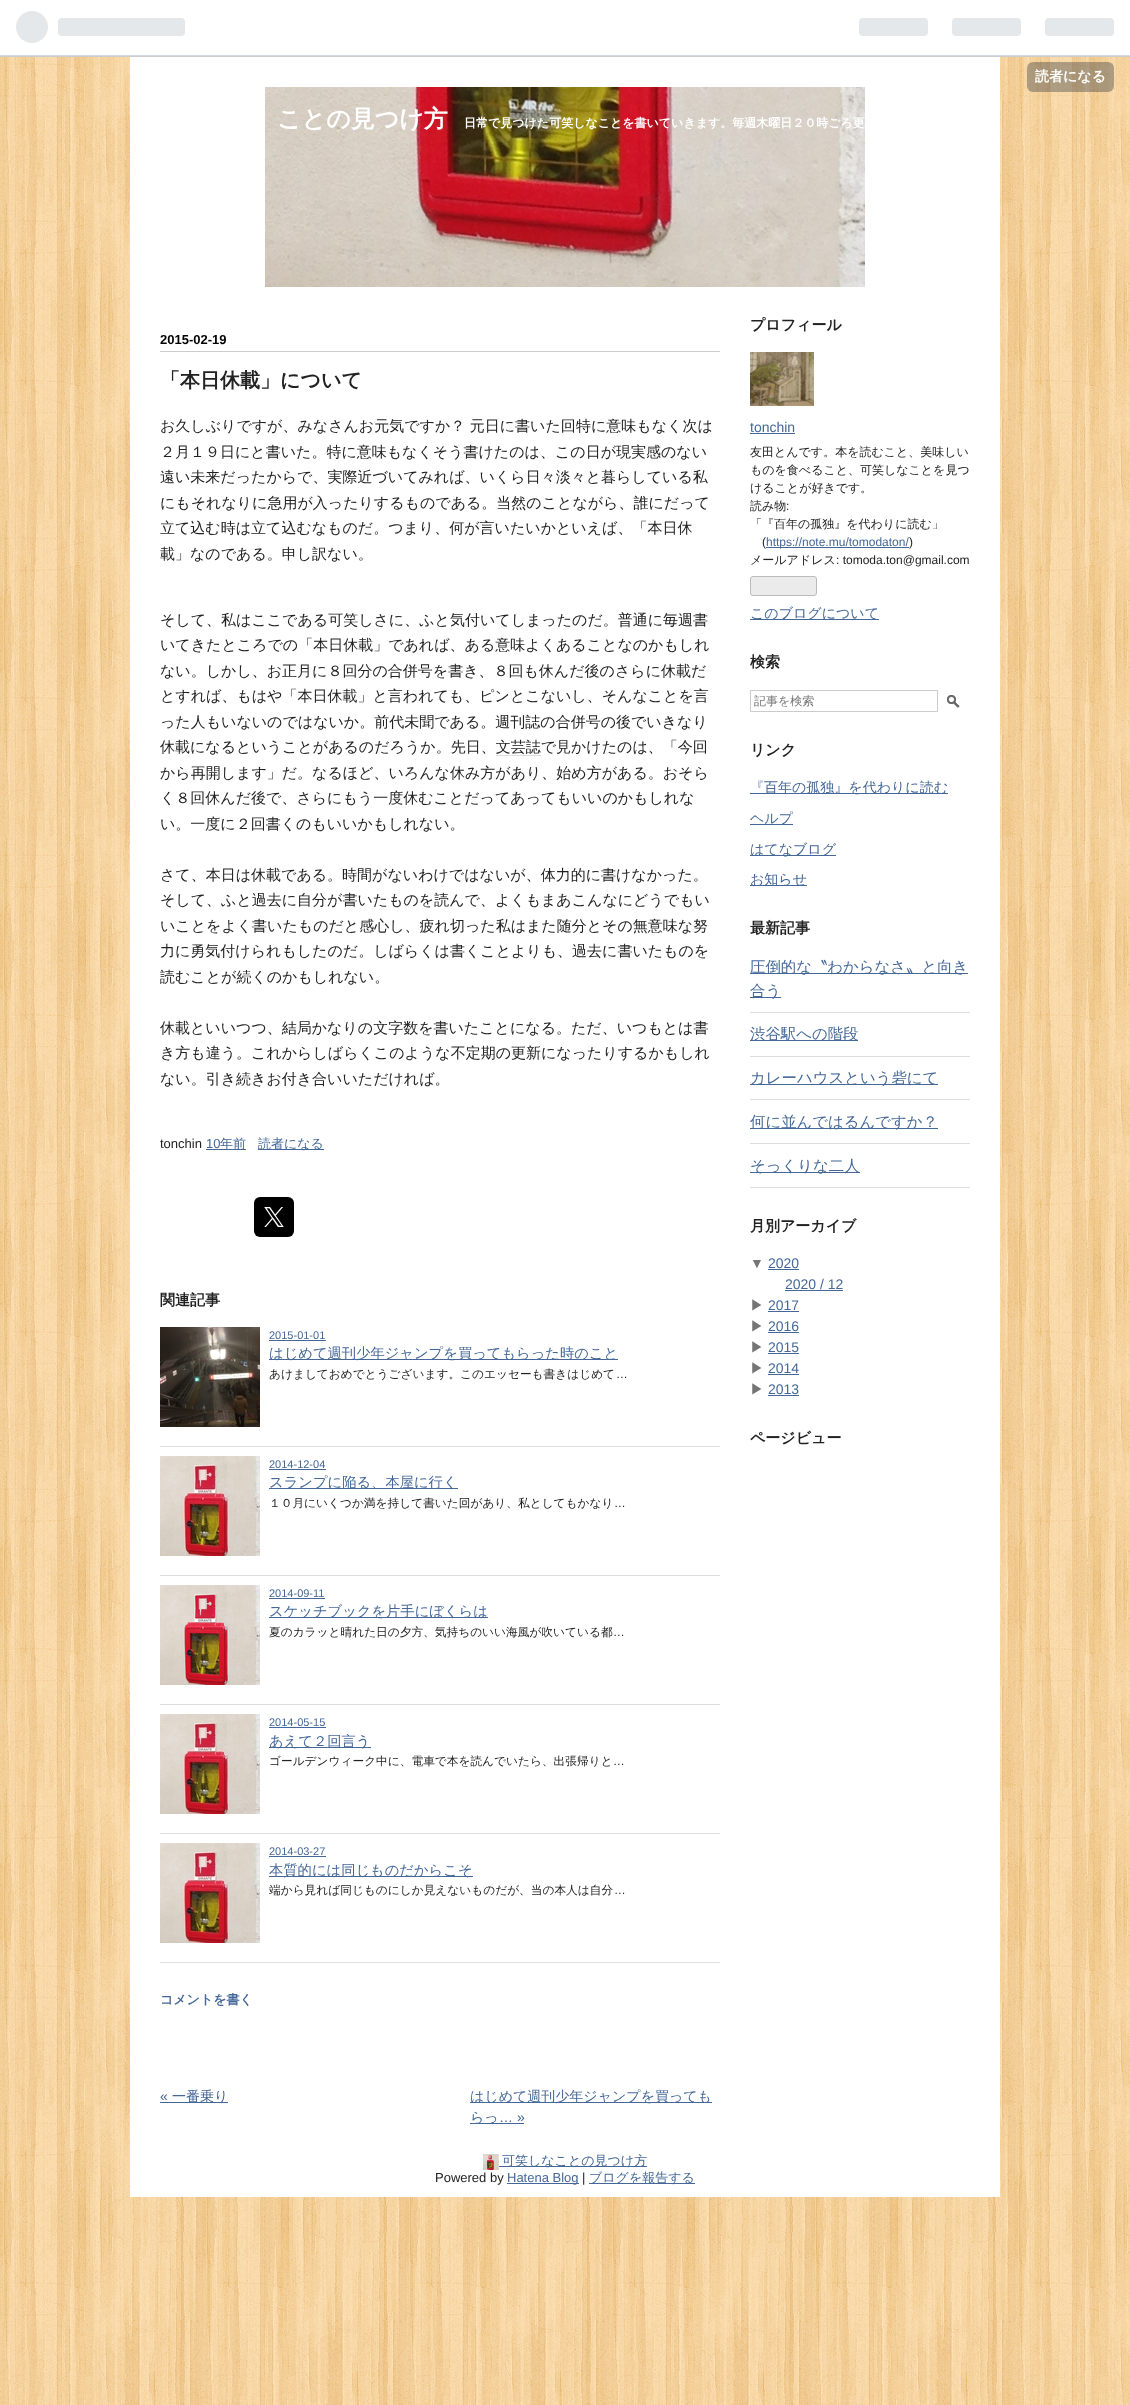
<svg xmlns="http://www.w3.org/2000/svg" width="1130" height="2405">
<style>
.a{font:bold 14px WenQuanYi Zen Hei;fill:#fff}
.b{font:bold 24px WenQuanYi Zen Hei;fill:#fff}
.c{font:bold 12px WenQuanYi Zen Hei;fill:#fff}
.d{font:bold 13px Liberation Sans;fill:#000}
.e{font:bold 20px WenQuanYi Zen Hei;fill:#222}
.f{font:500 15px WenQuanYi Zen Hei;fill:#222}
.g{font:13px Liberation Sans;fill:#222}
.h{font:13px Liberation Sans;fill:#456898}
.i{font:500 13px WenQuanYi Zen Hei;fill:#456898}
.j{font:bold 15px WenQuanYi Zen Hei;fill:#222}
.k{font:11px Liberation Sans;fill:#456898}
.l{font:500 14.3px WenQuanYi Zen Hei;fill:#456898}
.m{font:500 11.7px WenQuanYi Zen Hei;fill:#222}
.n{font:11.7px Liberation Sans;fill:#222}
.o{font:bold 13px WenQuanYi Zen Hei;fill:#456898}
.p{font:14px Liberation Sans;fill:#456898}
.q{font:500 14px WenQuanYi Zen Hei;fill:#456898}
.r{font:500 12px WenQuanYi Zen Hei;fill:#222}
.s{font:12px Liberation Sans;fill:#222}
.t{font:12px Liberation Sans;fill:#456898}
.u{font:500 12px WenQuanYi Zen Hei;fill:#757575}
.v{font:500 15.4px WenQuanYi Zen Hei;fill:#456898}
.w{font:14px Liberation Sans;fill:#757575}
.x{font:500 14px WenQuanYi Zen Hei;fill:#757575}
</style>
<rect width="100%" height="100%" fill="#fff"/>
<image href="1.png" x="0" y="57" width="1130" height="2348"/>
<path fill="#d2d8dd" d="M0 55h1130v1H0z"/>
<path fill="#ccc" d="M0 56h1130v1H0z"/>
<image href="2.png" x="16" y="11" width="169" height="32"/>
<image href="3.png" x="859" y="18" width="255" height="18"/>
<rect fill="#3d424566" x="1027" y="62" width="87" height="30" rx="6"/>
<path fill="#fff" d="M130 57h870v2140H130z"/>
<image href="4.png" x="265" y="87" width="600" height="200"/>
<path fill="#ccc" d="M160 351h560v1H160z"/>
<path fill="#dedede" d="M496 755h45v1H496z"/>
<path fill="#456898" d="M206 1149h40v1H206z"/>
<path fill="#456898" d="M258 1149h66v1H258z"/>
<rect fill="#000" x="254" y="1197" width="40" height="40" rx="6"/>
<image href="5.png" x="264" y="1207" width="20" height="20"/>
<path fill="#ddd" d="M160 1446h560v1H160z"/>
<image href="6.png" x="160" y="1327" width="100" height="100"/>
<path fill="#456898" d="M269 1340h57v1H269z"/>
<path fill="#456898" d="M269 1359h349v1H269z"/>
<path fill="#ddd" d="M160 1575h560v1H160z"/>
<image href="7.png" x="160" y="1456" width="100" height="100"/>
<path fill="#456898" d="M269 1469h57v1H269z"/>
<path fill="#456898" d="M269 1488h189v1H269z"/>
<path fill="#ddd" d="M160 1704h560v1H160z"/>
<image href="8.png" x="160" y="1585" width="100" height="100"/>
<path fill="#456898" d="M269 1598h56v1H269z"/>
<path fill="#456898" d="M269 1617h219v1H269z"/>
<path fill="#ddd" d="M160 1833h560v1H160z"/>
<image href="7.png" x="160" y="1714" width="100" height="100"/>
<path fill="#456898" d="M269 1727h57v1H269z"/>
<path fill="#456898" d="M269 1747h102v1H269z"/>
<path fill="#ddd" d="M160 1962h560v1H160z"/>
<image href="7.png" x="160" y="1843" width="100" height="100"/>
<path fill="#456898" d="M269 1856h57v1H269z"/>
<path fill="#456898" d="M269 1876h204v1H269z"/>
<path fill="#456898" d="M160 2102h68v1H160z"/>
<path fill="#456898" d="M470 2102h242v1H470z"/>
<path fill="#456898" d="M470 2123h54v1H470z"/>
<image href="9.png" x="750" y="352" width="64" height="54"/>
<path fill="#456898" d="M750 433h45v1H750z"/>
<path fill="#456898" d="M766 547h143v1H766z"/>
<rect fill="#ebebeb" stroke="#bbb" x="750.5" y="576.5" width="66" height="19" rx="2.5"/>
<path fill="#456898" d="M750 619h129v1H750z"/>
<path fill="none" stroke="#ccc" d="M750.5 690.5h187v21H750.5z"/>
<image href="10.png" x="947" y="695" width="13" height="13"/>
<path fill="#456898" d="M750 793h198v1H750z"/>
<path fill="#456898" d="M750 824h43v1H750z"/>
<path fill="#456898" d="M750 855h86v1H750z"/>
<path fill="#456898" d="M750 885h57v1H750z"/>
<path fill="#ddd" d="M750 1012h220v1H750z"/>
<path fill="#456898" d="M750 973h218v1H750z"/>
<path fill="#456898" d="M750 997h31v1H750z"/>
<path fill="#ddd" d="M750 1056h220v1H750z"/>
<path fill="#456898" d="M750 1040h108v1H750z"/>
<path fill="#ddd" d="M750 1099h220v1H750z"/>
<path fill="#456898" d="M750 1084h188v1H750z"/>
<path fill="#ddd" d="M750 1143h220v1H750z"/>
<path fill="#456898" d="M750 1128h188v1H750z"/>
<path fill="#ddd" d="M750 1187h220v1H750z"/>
<path fill="#456898" d="M750 1172h110v1H750z"/>
<path fill="#456898" d="M768 1269h31v1H768z"/>
<path fill="#456898" d="M785 1290h58v1H785z"/>
<path fill="#456898" d="M768 1311h31v1H768z"/>
<path fill="#456898" d="M768 1332h31v1H768z"/>
<path fill="#456898" d="M768 1353h31v1H768z"/>
<path fill="#456898" d="M768 1374h31v1H768z"/>
<path fill="#456898" d="M768 1395h31v1H768z"/>
<image href="11.png" x="483" y="2154" width="16" height="16"/>
<path fill="#456898" d="M499 2166h148v1H499z"/>
<path fill="#456898" d="M507 2183h72v1H507z"/>
<path fill="#456898" d="M589 2183h106v1H589z"/>
<text class="a" x="1035" y="81">読者になる</text>
<text class="b" x="277" y="127">ことの見つけ方</text>
<text class="c" x="464" y="127">日常で見つけた可笑しなことを書いていきます。毎週木曜日２０時ごろ更</text>
<text class="d" x="160" y="344">2015-02-19</text>
<text class="e" x="160" y="387">「本日休載」について</text>
<text class="f" x="160" y="431">お久しぶりですが、みなさんお元気ですか？ 元日に書いた回</text>
<text class="f" x="576" y="431">特に意味もなく次は</text>
<text class="f" x="160" y="457">２月１９日にと書いた。特に意味もなくそう書けたのは、この日が現実感のない</text>
<text class="f" x="160" y="482">遠い未来だったからで、実際近づいてみれば、いくら日々淡々と暮らしている私</text>
<text class="f" x="160" y="508">にもそれなりに急用が入ったりするものである。当然のことながら、誰にだって</text>
<text class="f" x="160" y="533">立て込む時は立て込むなものだ。つまり、何が言いたいかといえば、「本日休</text>
<text class="f" x="160" y="559">載」なのである。申し訳ない。</text>
<text class="f" x="160" y="625">そして、私はここである可笑しさに、ふと気付いてしまったのだ。普通に毎週書</text>
<text class="f" x="160" y="650">いてきたところでの「本日休載」であれば、ある意味よくあることなのかもしれ</text>
<text class="f" x="160" y="676">ない。しかし、お正月に８回分の合併号を書き、８回も休んだ後のさらに休載だ</text>
<text class="f" x="160" y="701">とすれば、もはや「本日休載」と言われても、ピンとこないし、そんなことを言</text>
<text class="f" x="160" y="727">った人もいないのではないか。前代未聞である。週刊誌の合併号の後でいきなり</text>
<text class="f" x="160" y="752">休載になるということがあるのだろうか。先日、文芸誌で見かけたのは、「今回</text>
<text class="f" x="160" y="778">から再開します」だ。なるほど、いろんな休み方があり、始め方がある。おそら</text>
<text class="f" x="160" y="803">く８回休んだ後で、さらにもう一度休むことだってあってもいいのかもしれな</text>
<text class="f" x="160" y="829">い。一度に２回書くのもいいかもしれない。</text>
<text class="f" x="160" y="880">さて、本日は休載である。時間がないわけではないが、体力的に書けなかった。</text>
<text class="f" x="160" y="905">そして、ふと過去に自分が書いたものを読んで、よくもまあこんなにどうでもい</text>
<text class="f" x="160" y="931">いことをよく書いたものだと感心し、疲れ切った私はまた随分とその無意味な努</text>
<text class="f" x="160" y="956">力に勇気付けられもしたのだ。しばらくは書くことよりも、過去に書いたものを</text>
<text class="f" x="160" y="982">読むことが続くのかもしれない。</text>
<text class="f" x="160" y="1033">休載といいつつ、結局かなりの文字数を書いたことになる。ただ、いつもとは書</text>
<text class="f" x="160" y="1058">き方も違う。これからしばらくこのような不定期の更新になったりするかもしれ</text>
<text class="f" x="160" y="1084">ない。引き続きお付き合いいただければ。</text>
<text class="g" x="160" y="1148">tonchin</text>
<text class="h" x="206" y="1148">10</text>
<text class="i" x="220" y="1148">年前</text>
<text class="i" x="258" y="1148">読者になる</text>
<text class="j" x="160" y="1305">関連記事</text>
<text class="k" x="269" y="1339">2015-01-01</text>
<text class="l" x="269" y="1358">はじめて週刊少年ジャンプを買ってもらった時のこと</text>
<text class="m" x="269" y="1378">あけましておめでとうございます。このエッセーも書きはじめて</text>
<text class="n" x="616" y="1378">…</text>
<text class="k" x="269" y="1468">2014-12-04</text>
<text class="l" x="269" y="1487">スランプに陥る、本屋に行く</text>
<text class="m" x="269" y="1507">１０月にいくつか満を持して書いた回があり、私としてもかなり</text>
<text class="n" x="614" y="1507">…</text>
<text class="k" x="269" y="1597">2014-09-11</text>
<text class="l" x="269" y="1616">スケッチブックを片手にぼくらは</text>
<text class="m" x="269" y="1636">夏のカラッと晴れた日の夕方、気持ちのいい海風が吹いている都</text>
<text class="n" x="613" y="1636">…</text>
<text class="k" x="269" y="1726">2014-05-15</text>
<text class="l" x="269" y="1746">あえて２回言う</text>
<text class="m" x="269" y="1765">ゴールデンウィーク中に、電車で本を読んでいたら、出張帰りと</text>
<text class="n" x="613" y="1765">…</text>
<text class="k" x="269" y="1855">2014-03-27</text>
<text class="l" x="269" y="1875">本質的には同じものだからこそ</text>
<text class="m" x="269" y="1894">端から見れば同じものにしか見えないものだが、当の本人は自分</text>
<text class="n" x="614" y="1894">…</text>
<text class="o" x="160" y="2004">コメントを書く</text>
<text class="p" x="160" y="2101">«</text>
<text class="q" x="172" y="2101">一番乗り</text>
<text class="q" x="470" y="2101">はじめて週刊少年ジャンプを買っても</text>
<text class="q" x="470" y="2122">らっ</text>
<text class="p" x="499" y="2122">… »</text>
<text class="j" x="750" y="330">プロフィール</text>
<text class="p" x="750" y="432">tonchin</text>
<text class="r" x="750" y="456">友田とんです。本を読むこと、美味しい</text>
<text class="r" x="750" y="474">ものを食べること、可笑しなことを見つ</text>
<text class="r" x="750" y="492">けることが好きです。</text>
<text class="r" x="750" y="510">読み物</text>
<text class="s" x="786" y="510">:</text>
<text class="r" x="750" y="528">「『百年の孤独』を代わりに読む」</text>
<text class="s" x="762" y="546">(</text>
<text class="t" x="766" y="546">https://note.mu/tomodaton/</text>
<text class="s" x="909" y="546">)</text>
<text class="r" x="750" y="564">メールアドレス</text>
<text class="s" x="836" y="564">: tomoda.ton@gmail.com</text>
<text class="q" x="750" y="618">このブログについて</text>
<text class="j" x="750" y="667">検索</text>
<text class="u" x="754" y="705">記事を検索</text>
<text class="j" x="750" y="755">リンク</text>
<text class="q" x="750" y="792">『百年の孤独』を代わりに読む</text>
<text class="q" x="750" y="823">ヘルプ</text>
<text class="q" x="750" y="854">はてなブログ</text>
<text class="q" x="750" y="884">お知らせ</text>
<text class="j" x="750" y="933">最新記事</text>
<text class="v" x="750" y="972">圧倒的な〝わからなさ〟と向き</text>
<text class="v" x="750" y="996">合う</text>
<text class="v" x="750" y="1039">渋谷駅への階段</text>
<text class="v" x="750" y="1083">カレーハウスという砦にて</text>
<text class="v" x="750" y="1127">何に並んではるんですか？</text>
<text class="v" x="750" y="1171">そっくりな二人</text>
<text class="j" x="750" y="1231">月別アーカイブ</text>
<text class="w" x="750" y="1268">▼</text>
<text class="p" x="768" y="1268">2020</text>
<text class="p" x="785" y="1289">2020 / 12</text>
<text class="x" x="750" y="1310">▶</text>
<text class="p" x="768" y="1310">2017</text>
<text class="x" x="750" y="1331">▶</text>
<text class="p" x="768" y="1331">2016</text>
<text class="x" x="750" y="1352">▶</text>
<text class="p" x="768" y="1352">2015</text>
<text class="x" x="750" y="1373">▶</text>
<text class="p" x="768" y="1373">2014</text>
<text class="x" x="750" y="1394">▶</text>
<text class="p" x="768" y="1394">2013</text>
<text class="j" x="750" y="1443">ページビュー</text>
<text class="i" x="502" y="2165">可笑しなことの見つけ方</text>
<text class="g" x="435" y="2182">Powered by</text>
<text class="h" x="507" y="2182">Hatena Blog</text>
<text class="g" x="582" y="2182">|</text>
<text class="i" x="589" y="2182">ブログを報告する</text>
</svg>
